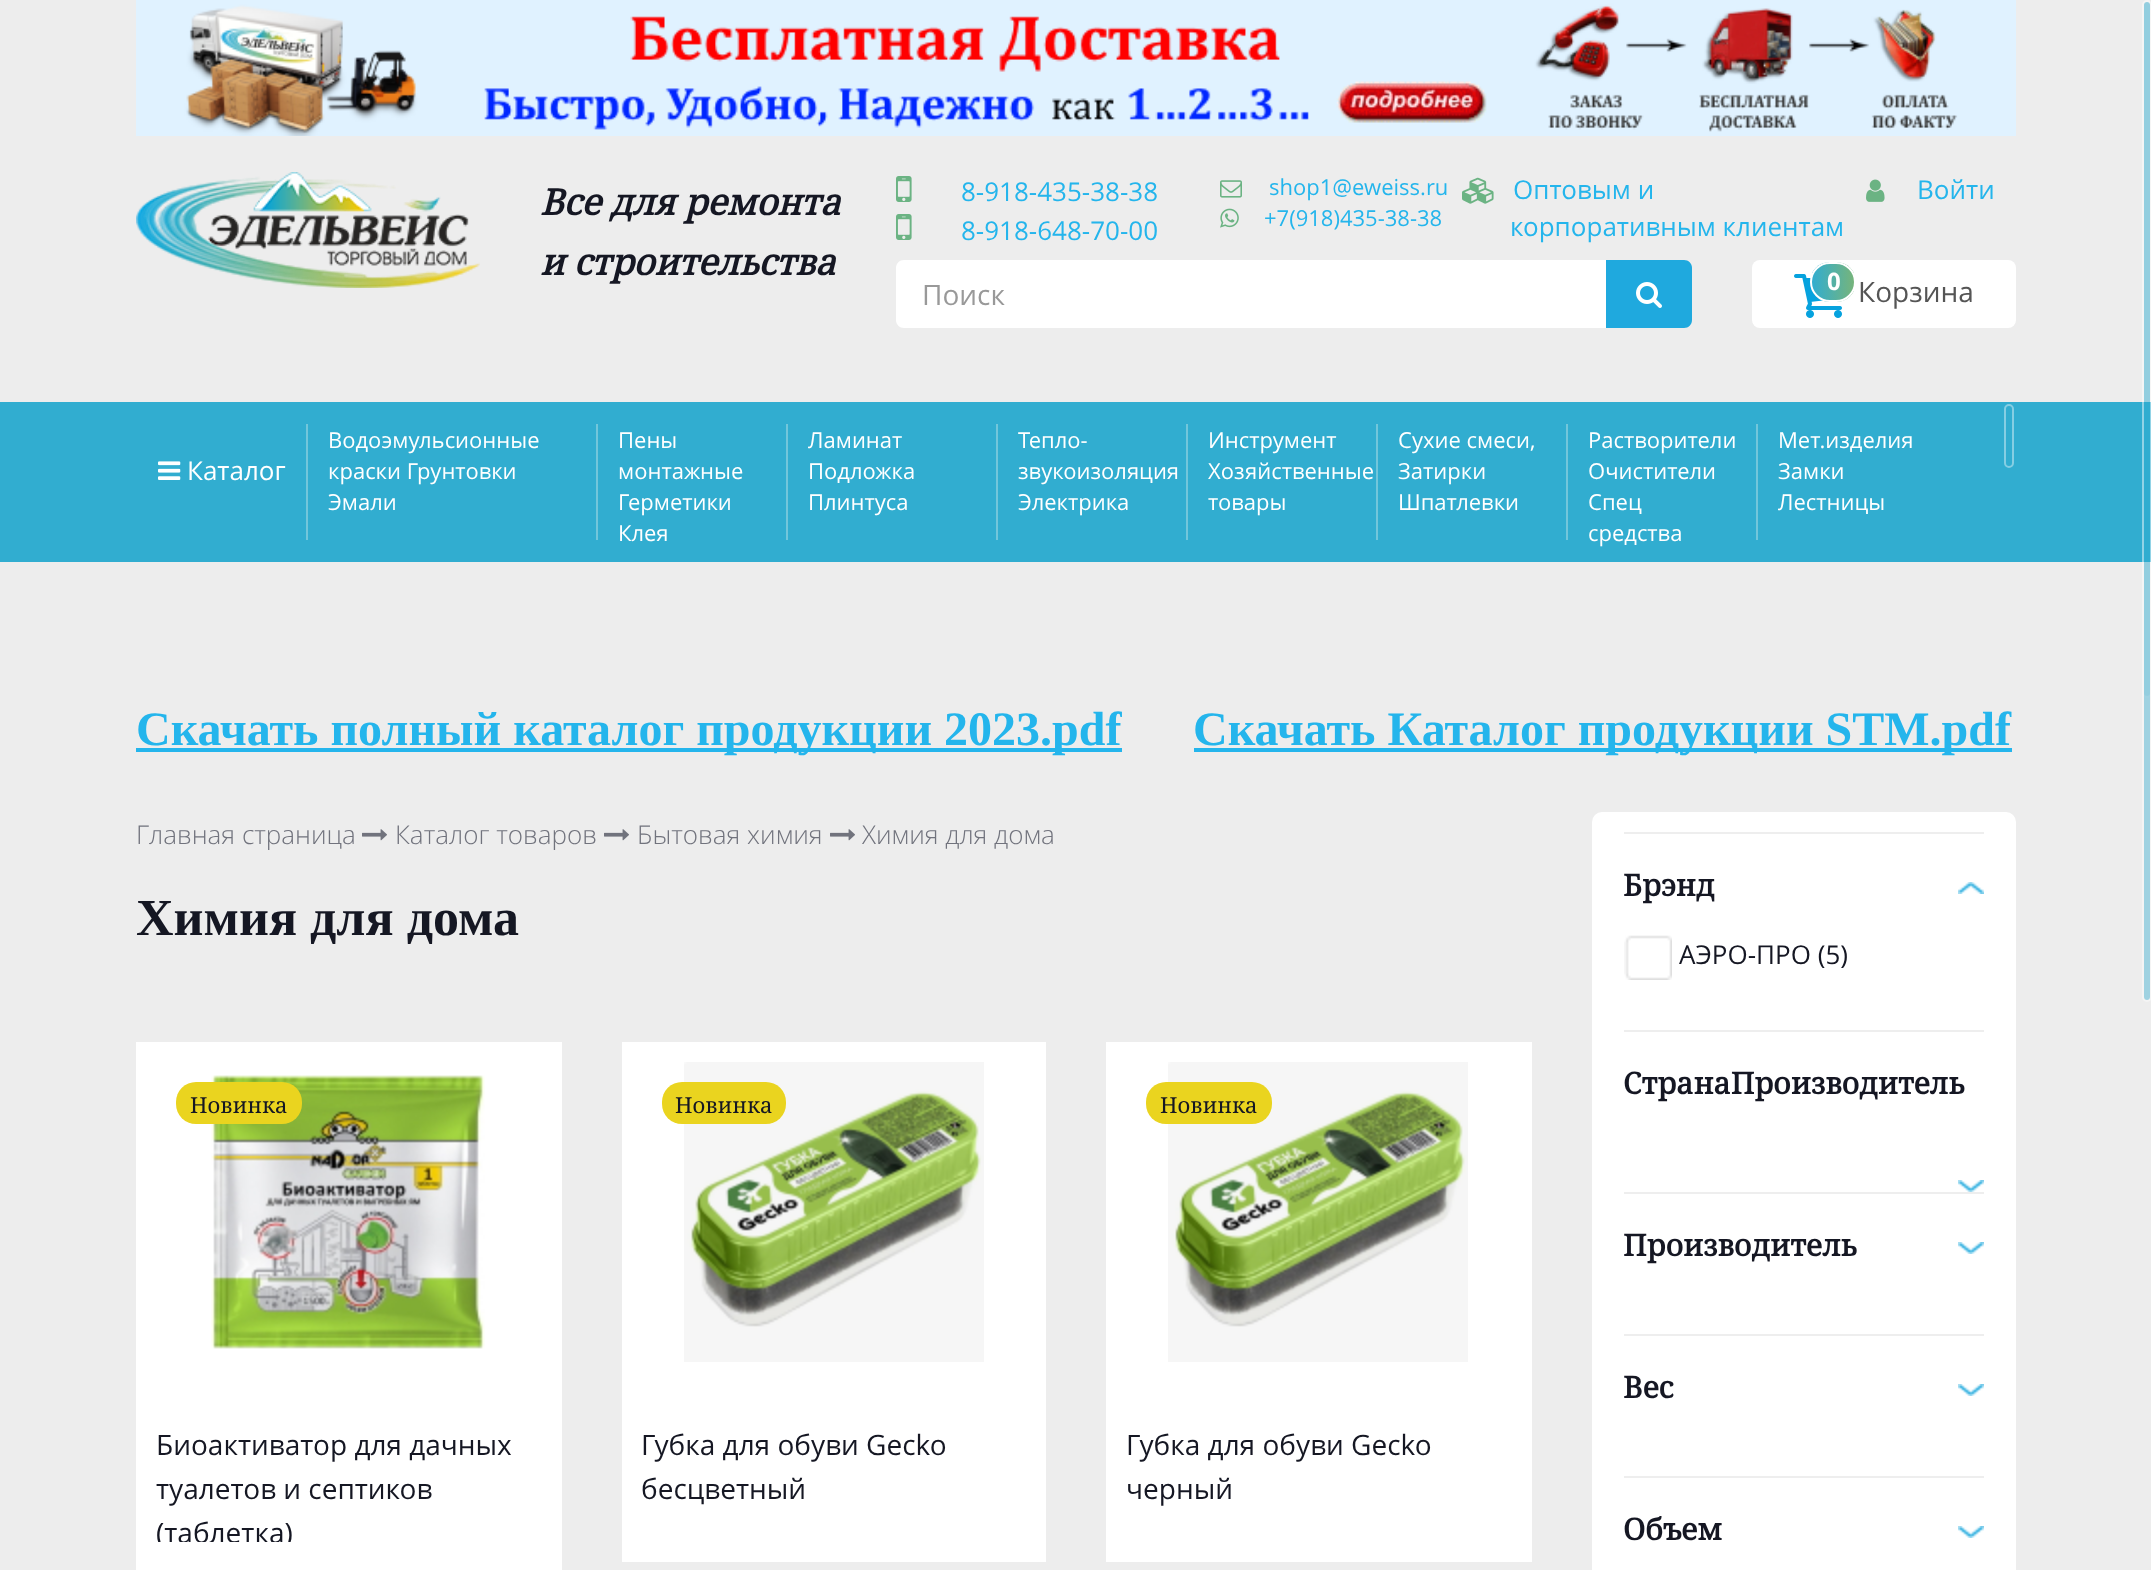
<svg xmlns="http://www.w3.org/2000/svg" width="2151" height="1570">
<style>
.a{font:italic bold 36px Noto Serif;fill:#151723}
.b{font:26px Open Sans;fill:#24b5ec}
.c{font:22px Open Sans;fill:#24b5ec}
.d{font:28px Open Sans;fill:#999}
.e{font:bold 24px Open Sans;fill:#fff}
.f{font:28px Open Sans;fill:#555}
.g{font:26px Open Sans;fill:#fff}
.h{font:22px Open Sans;fill:#fff}
.i{font:bold 48px Liberation Serif;fill:#24b5ec}
.j{font:300 26px Open Sans;fill:#71737d}
.k{font:bold 52px Liberation Serif;fill:#151723}
.l{font:22px Noto Serif;fill:#151723}
.m{font:28px Open Sans;fill:#151723}
.n{font:bold 30px Noto Serif;fill:#151723}
.o{font:26px Open Sans;fill:#151723}
</style>
<defs>
<clipPath id="clip1"><rect x="1810" y="262" width="46" height="40" rx="20"/></clipPath>
<linearGradient id="g1" gradientUnits="userSpaceOnUse" x1="1812" y1="282" x2="1854" y2="282"><stop offset="0" stop-color="#31add0"/><stop offset="1" stop-color="#76b47b"/></linearGradient>
<clipPath id="clip2"><path d="M156 1422h386v120H156z"/></clipPath>
</defs>
<rect width="100%" height="100%" fill="#ededed"/>
<path fill="#31add0" d="M0 402h2151v160H0z"/>
<rect fill="#31add01a" x="2144" y="2" width="6" height="694" rx="3"/>
<rect fill="none" stroke="#ffffff1a" stroke-width="2" x="2143" y="1" width="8" height="696" rx="4"/>
<image href="1.png" x="136" y="0" width="1880" height="136"/>
<image href="2.png" x="136" y="172" width="344" height="116"/>
<image href="3.png" x="896" y="176" width="16" height="26"/>
<image href="3.png" x="896" y="214" width="16" height="26"/>
<image href="4.png" x="1220" y="180" width="22" height="18"/>
<image href="5.png" x="1220" y="208" width="19" height="20"/>
<image href="6.png" x="1462" y="177" width="32" height="27"/>
<image href="7.png" x="1866" y="179" width="19" height="23"/>
<path fill="#fff" d="M904 260h702v68h-702c-4.5 0-8-3.5-8-8v-52c0-4.5 3.5-8 8-8z"/>
<path fill="#1fa9de" d="M1606 260h78c4.5 0 8 3.5 8 8v52c0 4.5-3.5 8-8 8h-78z"/>
<image href="8.png" x="1636" y="282" width="26" height="26"/>
<rect fill="#fff" x="1752" y="260" width="264" height="68" rx="8"/>
<image href="9.png" x="1794" y="274" width="48" height="44"/>
<g clip-path="url(#clip1)">
<path fill="url(#g1)" d="M1812 262h42v40H1812z"/>
</g>
<rect fill="none" stroke="#fff" stroke-width="2" x="1811" y="263" width="44" height="38" rx="19"/>
<rect fill="#31add069" x="2144" y="2" width="6" height="998" rx="3"/>
<rect fill="none" stroke="#ffffff69" stroke-width="2" x="2143" y="1" width="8" height="1000" rx="4"/>
<image href="10.png" x="158" y="461" width="23" height="19"/>
<path fill="#72c6db" d="M306 424h2v116H306z"/>
<path fill="#72c6db" d="M596 424h2v116H596z"/>
<path fill="#72c6db" d="M786 424h2v116H786z"/>
<path fill="#72c6db" d="M996 424h2v116H996z"/>
<path fill="#72c6db" d="M1186 424h2v116H1186z"/>
<path fill="#72c6db" d="M1376 424h2v116H1376z"/>
<path fill="#72c6db" d="M1566 424h2v116H1566z"/>
<path fill="#72c6db" d="M1756 424h2v116H1756z"/>
<rect fill="none" stroke="#85cee3" stroke-width="2" x="2005" y="405" width="8" height="62" rx="4"/>
<path fill="#24b5ec" d="M136 748h986v4H136z"/>
<path fill="#24b5ec" d="M1194 748h818v4H1194z"/>
<image href="11.png" x="362" y="829" width="25" height="12"/>
<image href="11.png" x="604" y="829" width="25" height="12"/>
<image href="11.png" x="830" y="829" width="25" height="12"/>
<path fill="#fff" d="M136 1042h426v528H136z"/>
<image href="12.png" x="211" y="1075" width="274" height="274"/>
<rect fill="#ead41f" x="176" y="1082" width="126" height="42" rx="20"/>
<path fill="#fff" d="M622 1042h424v520H622z"/>
<image href="13.png" x="684" y="1062" width="300" height="300"/>
<rect fill="#ead41f" x="662" y="1082" width="124" height="42" rx="20"/>
<path fill="#fff" d="M1106 1042h426v520H1106z"/>
<image href="13.png" x="1168" y="1062" width="300" height="300"/>
<rect fill="#ead41f" x="1146" y="1082" width="126" height="42" rx="20"/>
<rect fill="#fff" x="1592" y="812" width="424" height="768" rx="10"/>
<path fill="#eee" d="M1624 832h360v2H1624z"/>
<image href="14.png" x="1958" y="882" width="26" height="12"/>
<image href="15.png" x="1624" y="935" width="48" height="45"/>
<path fill="#eee" d="M1624 1030h360v2H1624z"/>
<image href="16.png" x="1958" y="1180" width="26" height="12"/>
<path fill="#eee" d="M1624 1192h360v2H1624z"/>
<image href="16.png" x="1958" y="1242" width="26" height="12"/>
<path fill="#eee" d="M1624 1334h360v2H1624z"/>
<image href="16.png" x="1958" y="1384" width="26" height="12"/>
<path fill="#eee" d="M1624 1476h360v2H1624z"/>
<image href="16.png" x="1958" y="1526" width="26" height="12"/>
<text class="a" x="540" y="215">Все для ремонта</text>
<text class="a" x="540" y="275">и строительства</text>
<text class="b" x="961" y="201">8-918-435-38-38</text>
<text class="b" x="961" y="240">8-918-648-70-00</text>
<text class="c" x="1269" y="195">shop1@eweiss.ru</text>
<text class="c" x="1264" y="226">+7(918)435-38-38</text>
<text class="b" x="1513" y="199">Оптовым и</text>
<text class="b" x="1510" y="236">корпоративным клиентам</text>
<text class="b" x="1917" y="199">Войти</text>
<text class="d" x="922" y="305">Поиск</text>
<text class="e" x="1827" y="290">0</text>
<text class="f" x="1858" y="302">Корзина</text>
<text class="g" x="187" y="480">Каталог</text>
<text class="h" x="328" y="448">Водоэмульсионные</text>
<text class="h" x="328" y="479">краски Грунтовки</text>
<text class="h" x="328" y="510">Эмали</text>
<text class="h" x="618" y="448">Пены</text>
<text class="h" x="618" y="479">монтажные</text>
<text class="h" x="618" y="510">Герметики</text>
<text class="h" x="618" y="541">Клея</text>
<text class="h" x="808" y="448">Ламинат</text>
<text class="h" x="808" y="479">Подложка</text>
<text class="h" x="808" y="510">Плинтуса</text>
<text class="h" x="1018" y="448">Тепло-</text>
<text class="h" x="1018" y="479">звукоизоляция</text>
<text class="h" x="1018" y="510">Электрика</text>
<text class="h" x="1208" y="448">Инструмент</text>
<text class="h" x="1208" y="479">Хозяйственные</text>
<text class="h" x="1208" y="510">товары</text>
<text class="h" x="1398" y="448">Сухие смеси,</text>
<text class="h" x="1398" y="479">Затирки</text>
<text class="h" x="1398" y="510">Шпатлевки</text>
<text class="h" x="1588" y="448">Растворители</text>
<text class="h" x="1588" y="479">Очистители</text>
<text class="h" x="1588" y="510">Спец</text>
<text class="h" x="1588" y="541">средства</text>
<text class="h" x="1778" y="448">Мет.изделия</text>
<text class="h" x="1778" y="479">Замки</text>
<text class="h" x="1778" y="510">Лестницы</text>
<text class="i" x="136" y="745">Скачать полный каталог продукции 2023.pdf</text>
<text class="i" x="1193" y="745">Скачать Каталог продукции STM.pdf</text>
<text class="j" x="136" y="844">Главная страница</text>
<text class="j" x="395" y="844">Каталог товаров</text>
<text class="j" x="637" y="844">Бытовая химия</text>
<text class="j" x="862" y="844">Химия для дома</text>
<text class="k" x="136" y="935">Химия для дома</text>
<text class="l" x="190" y="1113">Новинка</text>
<text class="m" x="156" y="1455">Биоактиватор для дачных</text>
<text class="m" x="156" y="1499">туалетов и септиков</text>
<g clip-path="url(#clip2)">
<text class="m" x="156" y="1543">(таблетка)</text>
</g>
<text class="l" x="675" y="1113">Новинка</text>
<text class="m" x="641" y="1455">Губка для обуви Gecko</text>
<text class="m" x="641" y="1499">бесцветный</text>
<text class="l" x="1160" y="1113">Новинка</text>
<text class="m" x="1126" y="1455">Губка для обуви Gecko</text>
<text class="m" x="1126" y="1499">черный</text>
<text class="n" x="1623" y="896">Брэнд</text>
<text class="o" x="1679" y="964">АЭРО-ПРО (5)</text>
<text class="n" x="1623" y="1094">СтранаПроизводитель</text>
<text class="n" x="1623" y="1256">Производитель</text>
<text class="n" x="1623" y="1398">Вес</text>
<text class="n" x="1623" y="1540">Объем</text>
</svg>
